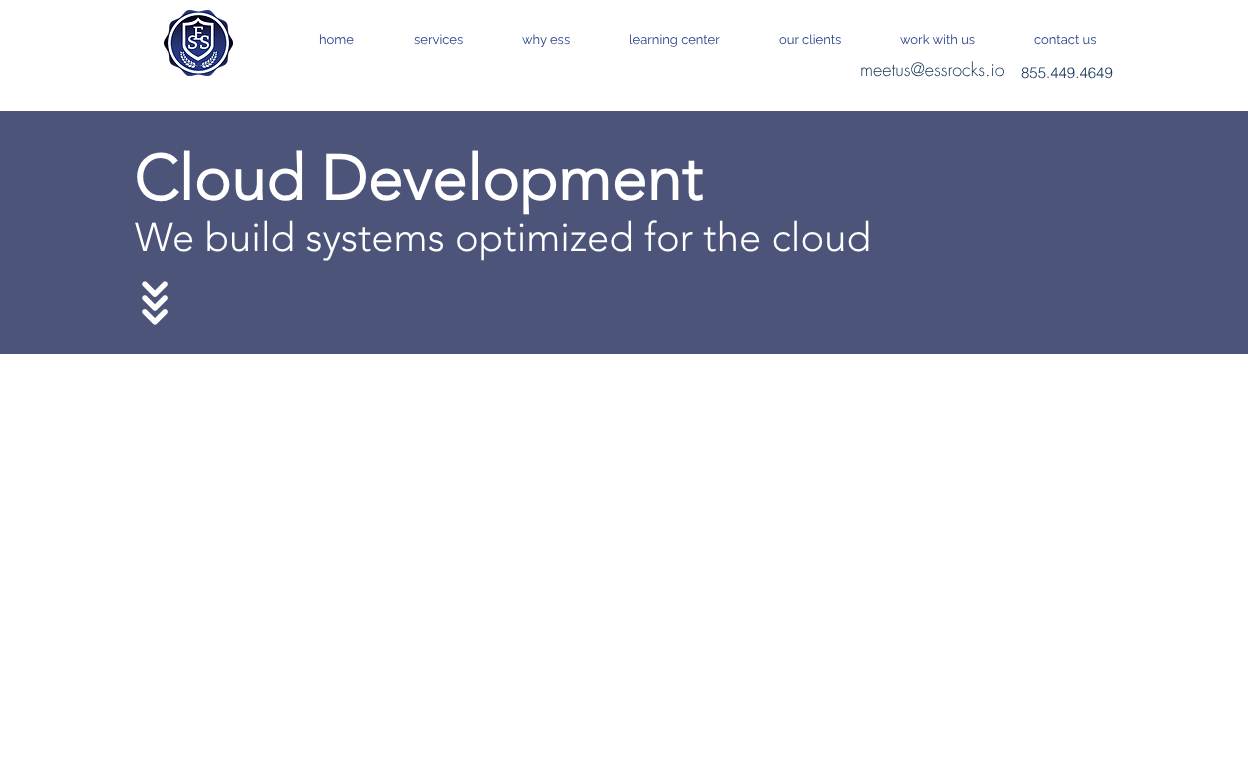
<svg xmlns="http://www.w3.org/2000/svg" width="1248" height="758">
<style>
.a{font:13px Raleway;fill:#2a438c}
.b{font:300 18px futura;fill:#102e52}
.c{font:300 15px helvetica;fill:#102e52}
.d{font:bold 63px 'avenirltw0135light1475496';fill:#fff}
.e{font:300 40px 'avenirltw0135light1475496';fill:#fff}
</style>
<rect width="100%" height="100%" fill="#fff"/>
<image href="1.png" x="164" y="10" width="69" height="66"/>
<path fill="#4d547a" d="M0 111h1248v243H0z"/>
<image href="2.png" x="142" y="281" width="26" height="44"/>
<text class="a" x="319" y="44">home</text>
<text class="a" x="414" y="44">services</text>
<text class="a" x="522" y="44">why ess</text>
<text class="a" x="629" y="44">learning center</text>
<text class="a" x="779" y="44">our clients</text>
<text class="a" x="900" y="44">work with us</text>
<text class="a" x="1034" y="44">contact us</text>
<text class="b" x="860" y="76">meetus@essrocks.io</text>
<text class="c" x="1021" y="78">855.449.4649</text>
<text class="d" x="134" y="200">Cloud Development</text>
<text class="e" x="135" y="251">We build systems optimized for the cloud</text>
</svg>
